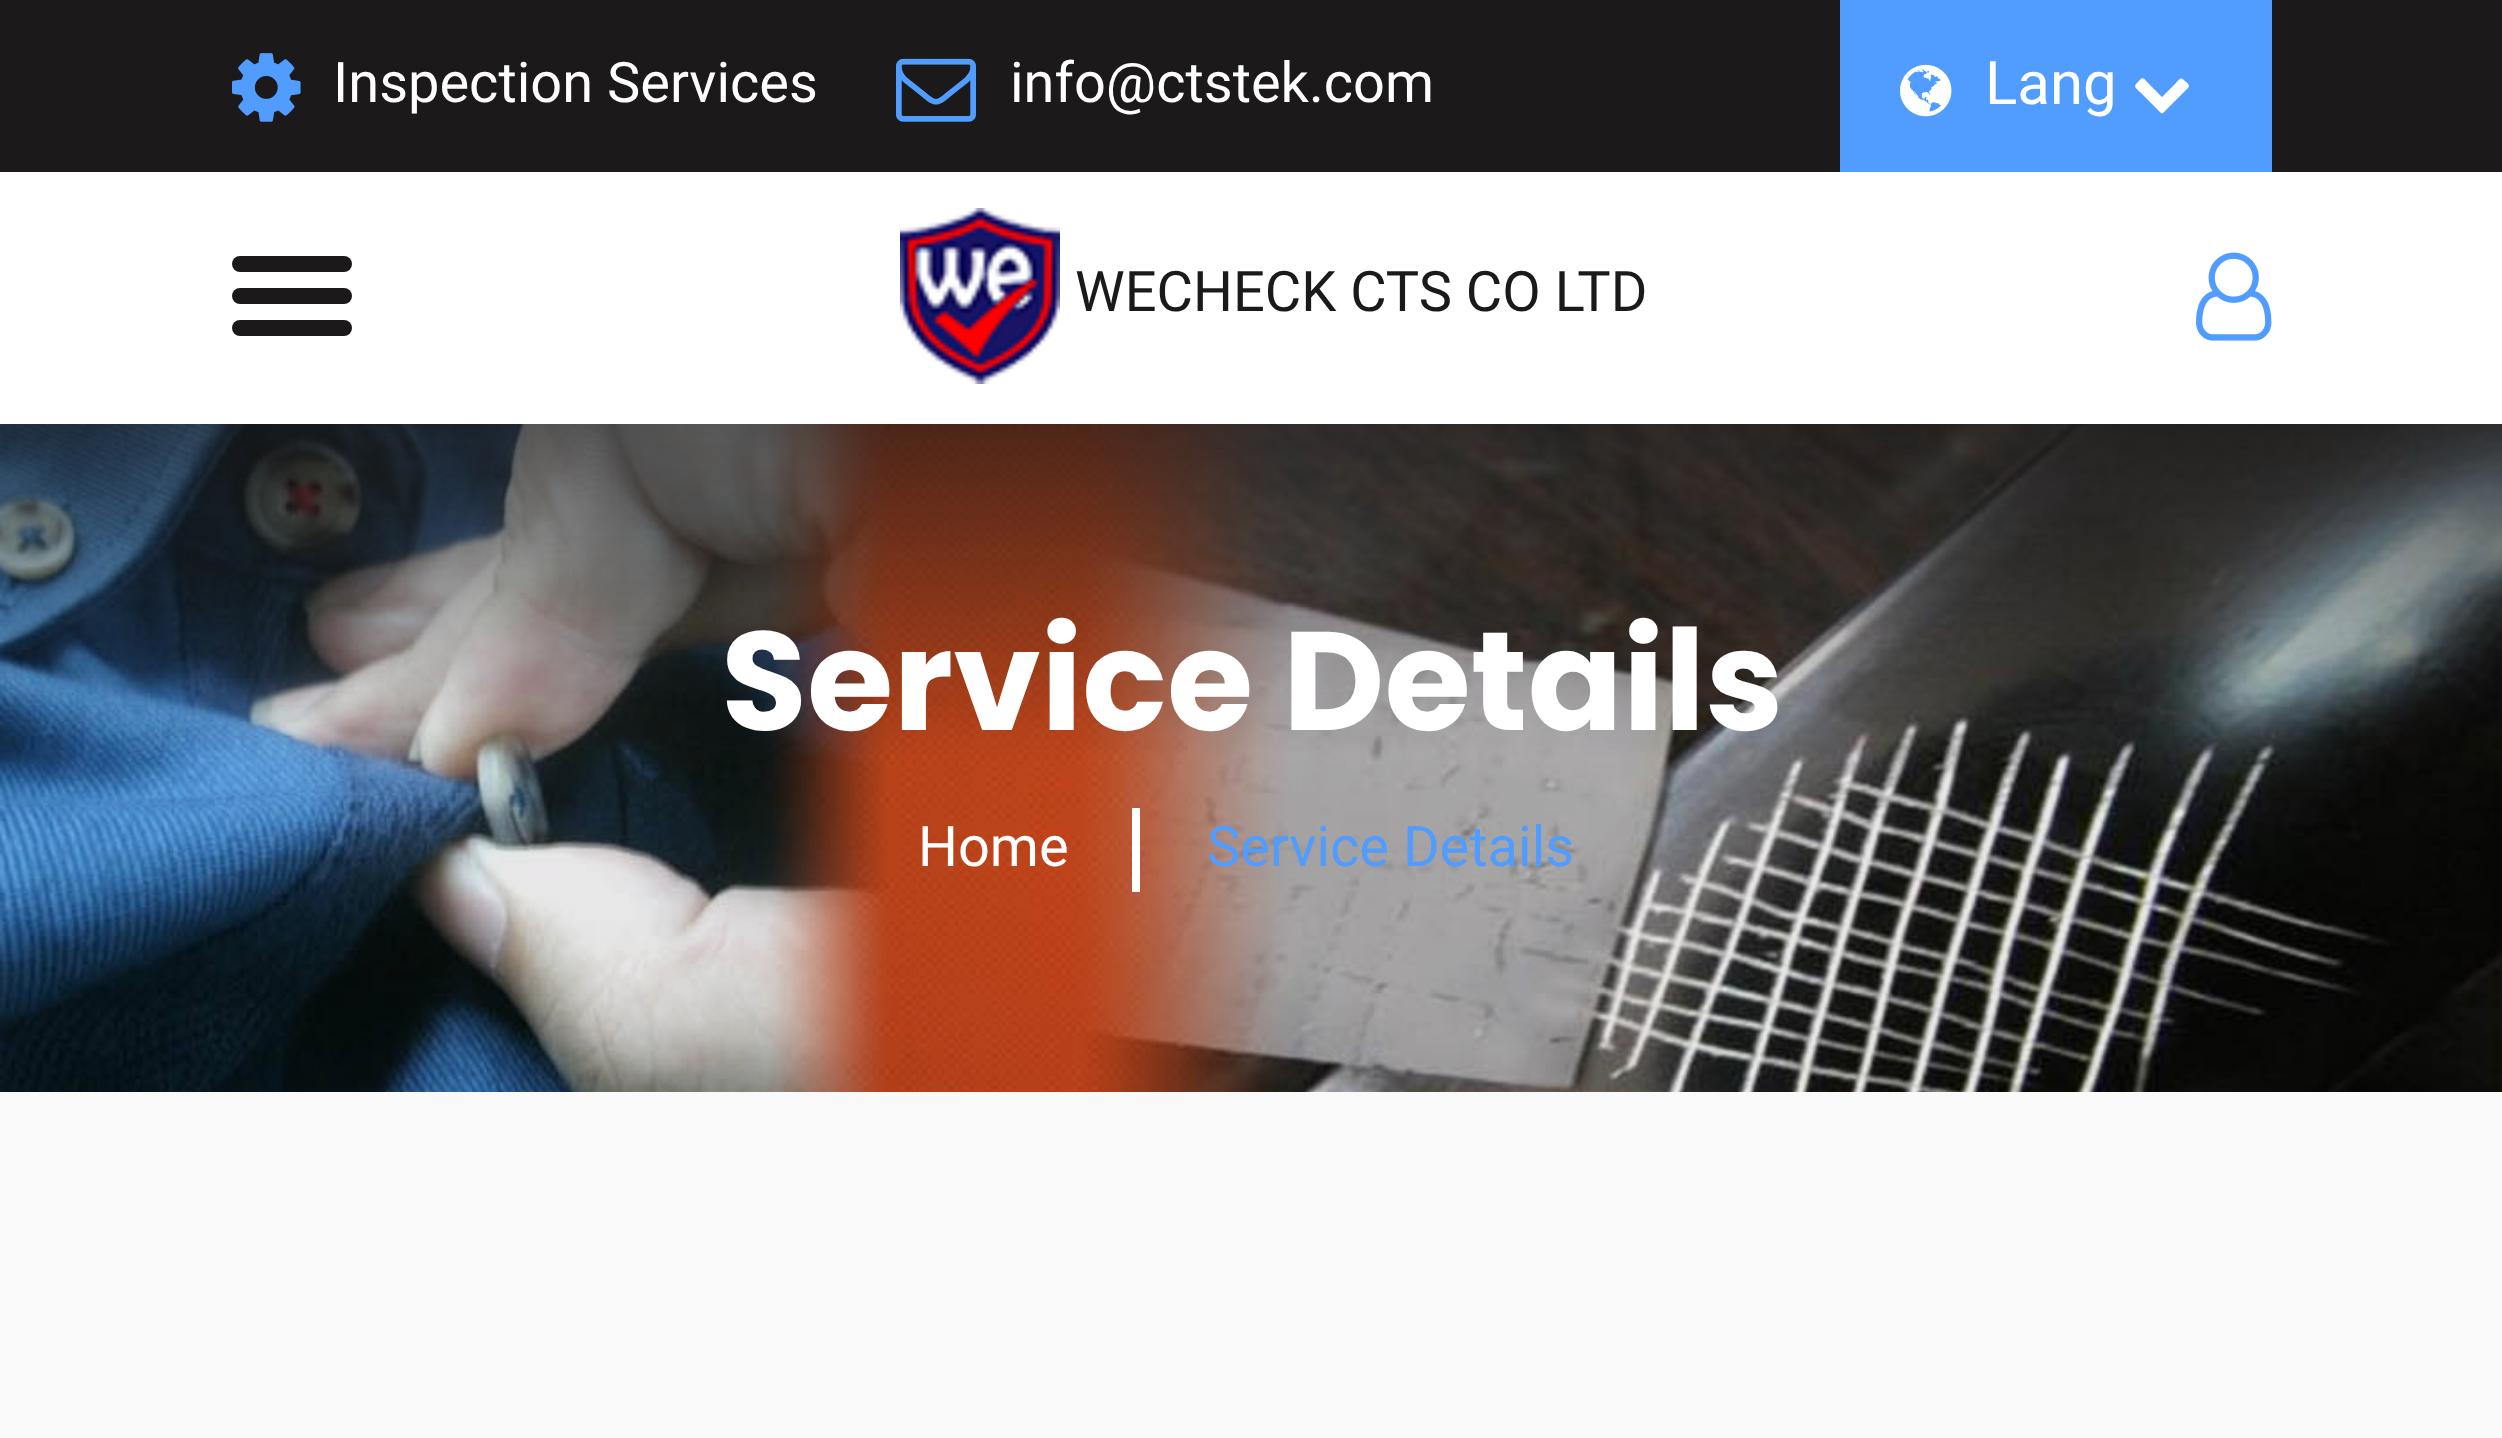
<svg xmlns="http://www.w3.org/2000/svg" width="2502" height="1438">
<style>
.a{font:56px Roboto;fill:#fff}
.b{font:60px Roboto;fill:#fff}
.c{font:56px Roboto;fill:#1b1919}
.d{font:bold 140px Poppins;fill:#fff}
.e{font:56px Roboto;fill:#509cff}
</style>
<rect width="100%" height="100%" fill="#fff"/>
<path fill="#1b1919" d="M0 0h2502v172H0z"/>
<image href="1.png" x="232" y="53" width="69" height="69"/>
<image href="2.png" x="896" y="58" width="80" height="64"/>
<path fill="#509cff" d="M1840 0h432v172H1840z"/>
<image href="3.png" x="1900" y="64" width="52" height="53"/>
<path fill="#fff" d="M2188 88l-20 20c-7 7-5 7-12 0l-16-16c-4-4-7-5-3-9c5-5 5-7 10-1l15 15l12-12c6-6 6-9 11-4c1 1 6 4 3 7z"/>
<rect fill="#1b1919" x="232" y="256" width="120" height="16" rx="8"/>
<rect fill="#1b1919" x="232" y="288" width="120" height="16" rx="8"/>
<rect fill="#1b1919" x="232" y="320" width="120" height="16" rx="8"/>
<image href="4.png" x="900" y="208" width="160" height="176"/>
<image href="5.png" x="2196" y="252" width="76" height="89"/>
<image href="6.png" x="0" y="424" width="2502" height="668"/>
<path fill="#fff" d="M1132 808h8v84H1132z"/>
<path fill="#f9f9f9" d="M0 1092h2502v346H0z"/>
<text class="a" x="333" y="102">Inspection Services</text>
<text class="a" x="1010" y="102">info@ctstek.com</text>
<text class="b" x="1985" y="104">Lang</text>
<text class="c" x="1075" y="311">WECHECK CTS CO LTD</text>
<text class="d" x="721" y="730">Service Details</text>
<text class="a" x="918" y="866">Home</text>
<text class="e" x="1207" y="866">Service Details</text>
</svg>
